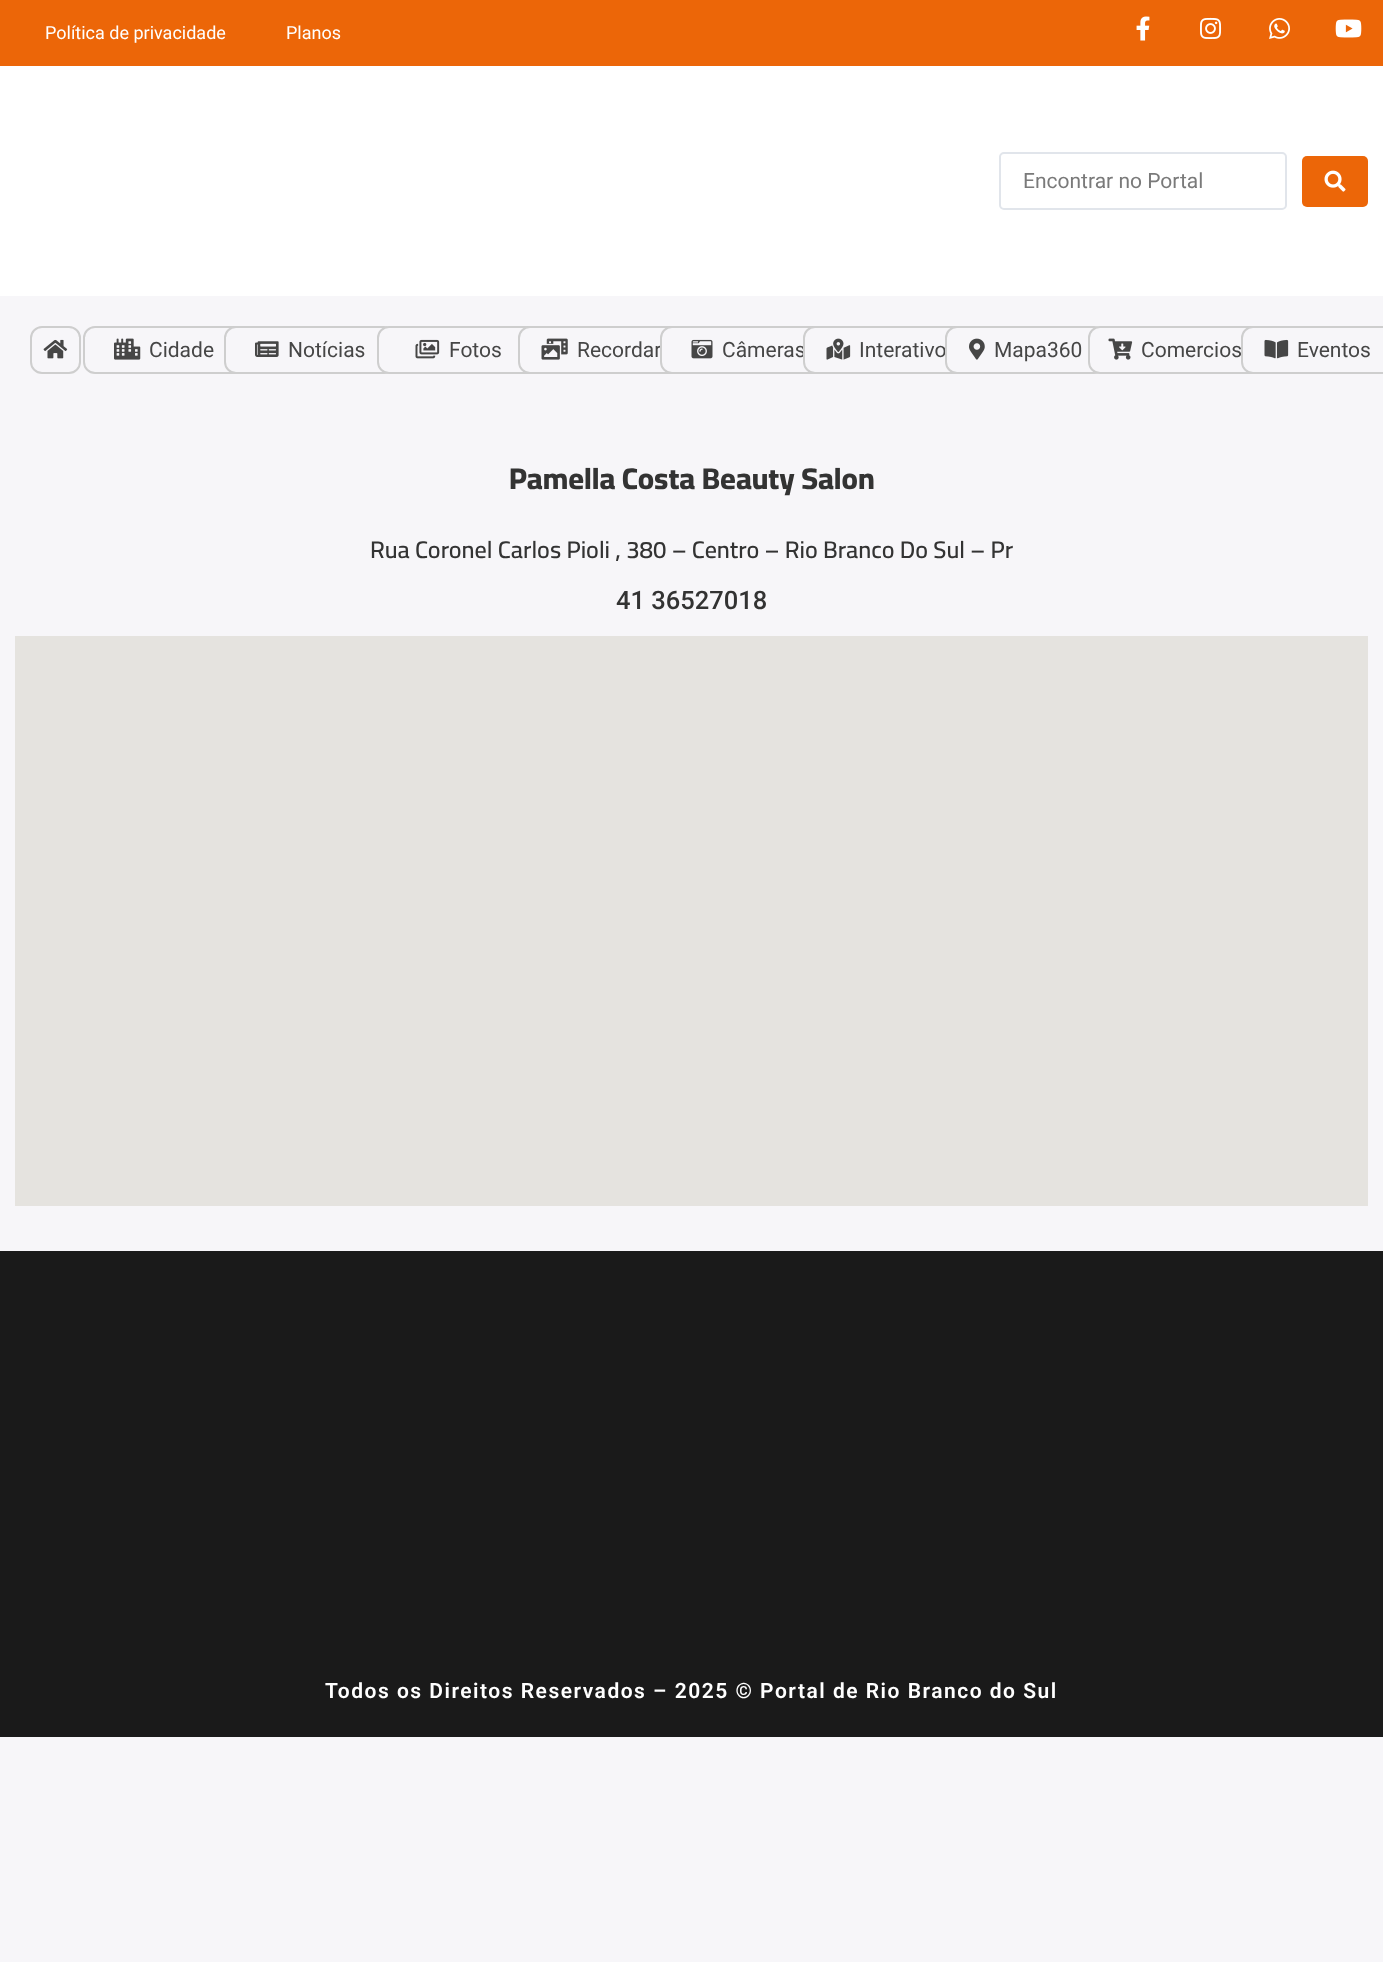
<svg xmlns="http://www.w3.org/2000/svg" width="1383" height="1962">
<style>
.a{font:18px Roboto;fill:#fff}
.b{font:21px Roboto;fill:#7a7a7a}
.c{font:21px Roboto;fill:#464646}
.d{font:800 30px Cairo;fill:#333}
.e{font:600 24px Cairo;fill:#333}
.f{font:500 25.5px Roboto;fill:#333}
.g{font:600 21px Roboto;letter-spacing:1.5px;fill:#fff}
</style>
<rect width="100%" height="100%" fill="#f7f6f9"/>
<path fill="#ec6608" d="M0 0h1383v66H0z"/>
<image href="1.png" x="1136" y="16" width="14" height="25"/>
<image href="2.png" x="1200" y="17" width="22" height="22"/>
<image href="3.png" x="1269" y="18" width="21" height="21"/>
<image href="4.png" x="1335" y="19" width="27" height="19"/>
<path fill="#fff" d="M0 66h1383v230H0z"/>
<rect fill="none" stroke="#e1e5eb" stroke-width="2" x="1000" y="153" width="286" height="56" rx="4"/>
<rect fill="#ec6608" x="1302" y="156" width="66" height="51" rx="5"/>
<image href="5.png" x="1324" y="170" width="22" height="22"/>
<rect fill="none" stroke="#cecece" stroke-width="2" x="31" y="327" width="49" height="46" rx="11"/>
<image href="6.png" x="43" y="339" width="25" height="20"/>
<rect fill="none" stroke="#cecece" stroke-width="2" x="84" y="327" width="161" height="46" rx="11"/>
<image href="7.png" x="114" y="338" width="27" height="22"/>
<rect fill="#f7f6f9" stroke="#cecece" stroke-width="2" x="225" y="327" width="170" height="46" rx="11"/>
<image href="8.png" x="255" y="341" width="24" height="16"/>
<rect fill="#f7f6f9" stroke="#cecece" stroke-width="2" x="378" y="327" width="161" height="46" rx="11"/>
<image href="9.png" x="415" y="339" width="25" height="20"/>
<rect fill="#f7f6f9" stroke="#cecece" stroke-width="2" x="519" y="327" width="166" height="46" rx="11"/>
<image href="10.png" x="541" y="338" width="27" height="22"/>
<path fill="#e5e3df" d="M15 636h1353v570H15z"/>
<path fill="#1a1a1a" d="M0 1251h1383v486H0z"/>
<text class="a" x="45" y="39">Política de privacidade</text>
<text class="a" x="286" y="39">Planos</text>
<text class="b" x="1023" y="188">Encontrar no Portal</text>
<text class="c" x="149" y="357">Cidade</text>
<text class="c" x="288" y="357">Notícias</text>
<text class="c" x="449" y="357">Fotos</text>
<text class="c" x="577" y="357">Recordar</text>
<rect fill="#f7f6f9" stroke="#cecece" stroke-width="2" x="661" y="327" width="175" height="46" rx="11"/>
<image href="11.png" x="691" y="339" width="22" height="20"/>
<text class="c" x="722" y="357">Câmeras</text>
<rect fill="#f7f6f9" stroke="#cecece" stroke-width="2" x="804" y="327" width="166" height="46" rx="11"/>
<image href="12.png" x="826" y="338" width="25" height="22"/>
<text class="c" x="859" y="357">Interativo</text>
<rect fill="#f7f6f9" stroke="#cecece" stroke-width="2" x="946" y="327" width="159" height="46" rx="11"/>
<image href="13.png" x="969" y="338" width="16" height="22"/>
<text class="c" x="994" y="357">Mapa360</text>
<rect fill="#f7f6f9" stroke="#cecece" stroke-width="2" x="1089" y="327" width="173" height="46" rx="11"/>
<image href="14.png" x="1108" y="338" width="25" height="22"/>
<text class="c" x="1141" y="357">Comercios</text>
<rect fill="#f7f6f9" stroke="#cecece" stroke-width="2" x="1242" y="327" width="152" height="46" rx="11"/>
<image href="15.png" x="1264" y="339" width="25" height="20"/>
<text class="c" x="1297" y="357">Eventos</text>
<text class="d" x="509" y="489">Pamella Costa Beauty Salon</text>
<text class="e" x="370" y="558">Rua Coronel Carlos Pioli , 380 – Centro – Rio Branco Do Sul – Pr</text>
<text class="f" x="616" y="609">41 36527018</text>
<text class="g" x="325" y="1698">Todos os Direitos Reservados – 2025 © Portal de Rio Branco do Sul</text>
</svg>
